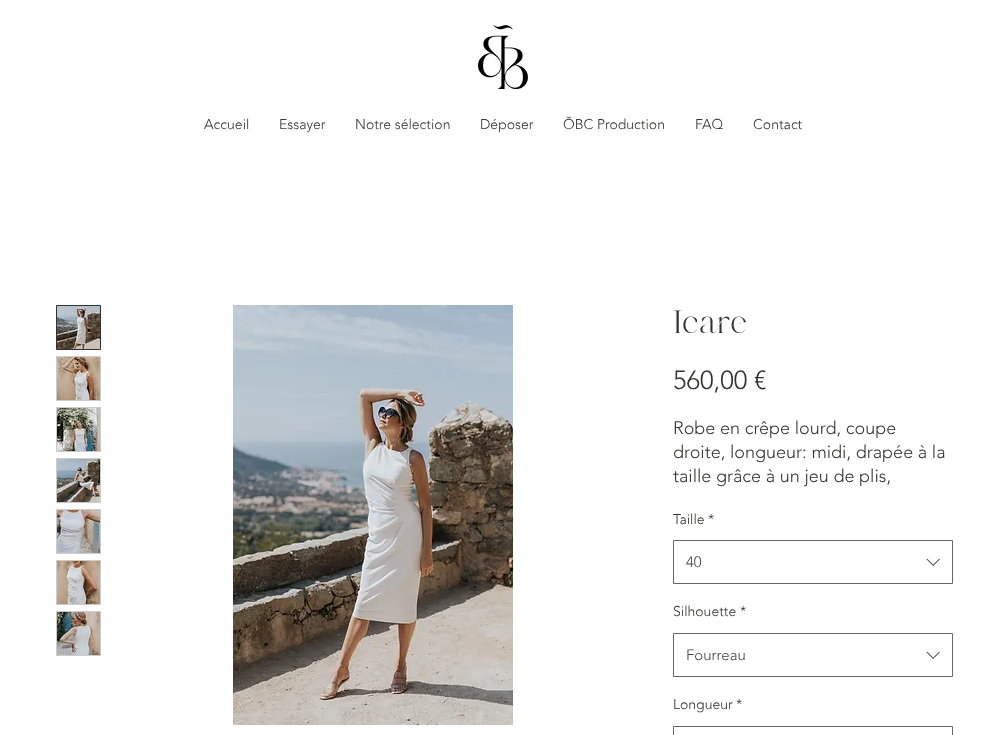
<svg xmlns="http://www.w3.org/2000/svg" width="1005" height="735">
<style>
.a{font:300 14px 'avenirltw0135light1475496';fill:#333231}
.b{font:32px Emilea;fill:#333231}
.c{font:300 26px 'avenirltw0135light1475496';fill:#333231}
.d{font:300 18px 'avenirltw0135light1475496';fill:#333231}
.e{font:300 15px 'avenirltw0135light1475496';fill:#444}
</style>
<rect width="100%" height="100%" fill="#fff"/>
<image href="1.png" x="478" y="25" width="50" height="64"/>
<path fill="none" stroke="#333231" d="M56.5 305.5h44v44H56.5z"/>
<image href="2.png" x="57" y="306" width="43" height="43"/>
<path fill="#ccc" d="M56 356h45v45H56z"/>
<image href="3.png" x="57" y="357" width="43" height="43"/>
<path fill="#ccc" d="M56 407h45v45H56z"/>
<image href="4.png" x="57" y="408" width="43" height="43"/>
<path fill="#ccc" d="M56 458h45v45H56z"/>
<image href="5.png" x="57" y="459" width="43" height="43"/>
<path fill="#ccc" d="M56 509h45v45H56z"/>
<image href="6.png" x="57" y="510" width="43" height="43"/>
<path fill="#ccc" d="M56 560h45v45H56z"/>
<image href="7.png" x="57" y="561" width="43" height="43"/>
<path fill="#ccc" d="M56 611h45v45H56z"/>
<image href="8.png" x="57" y="612" width="43" height="43"/>
<image href="9.png" x="233" y="305" width="280" height="420"/>
<path fill="none" stroke="#666" d="M673.5 540.5h279v43H673.5z"/>
<image href="10.png" x="926" y="558" width="14" height="8"/>
<path fill="none" stroke="#666" d="M673.5 633.5h279v43H673.5z"/>
<image href="10.png" x="926" y="651" width="14" height="8"/>
<path fill="none" stroke="#666" d="M673.5 726.5h279v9H673.5z"/>
<text class="a" x="204" y="129">Accueil</text>
<text class="a" x="279" y="129">Essayer</text>
<text class="a" x="355" y="129">Notre sélection</text>
<text class="a" x="480" y="129">Déposer</text>
<text class="a" x="563" y="129">ÕBC Production</text>
<text class="a" x="695" y="129">FAQ</text>
<text class="a" x="753" y="129">Contact</text>
<text class="b" x="673" y="333">Icare</text>
<text class="c" x="673" y="389">560,00 €</text>
<text class="d" x="673" y="434">Robe en crêpe lourd, coupe</text>
<text class="d" x="673" y="458">droite, longueur: midi, drapée à la</text>
<text class="d" x="673" y="482">taille grâce à un jeu de plis,</text>
<text class="a" x="673" y="524">Taille</text>
<text class="a" x="708" y="524">*</text>
<text class="e" x="686" y="567">40</text>
<text class="a" x="673" y="616">Silhouette</text>
<text class="a" x="740" y="616">*</text>
<text class="e" x="686" y="660">Fourreau</text>
<text class="a" x="673" y="709">Longueur</text>
<text class="a" x="736" y="709">*</text>
</svg>
